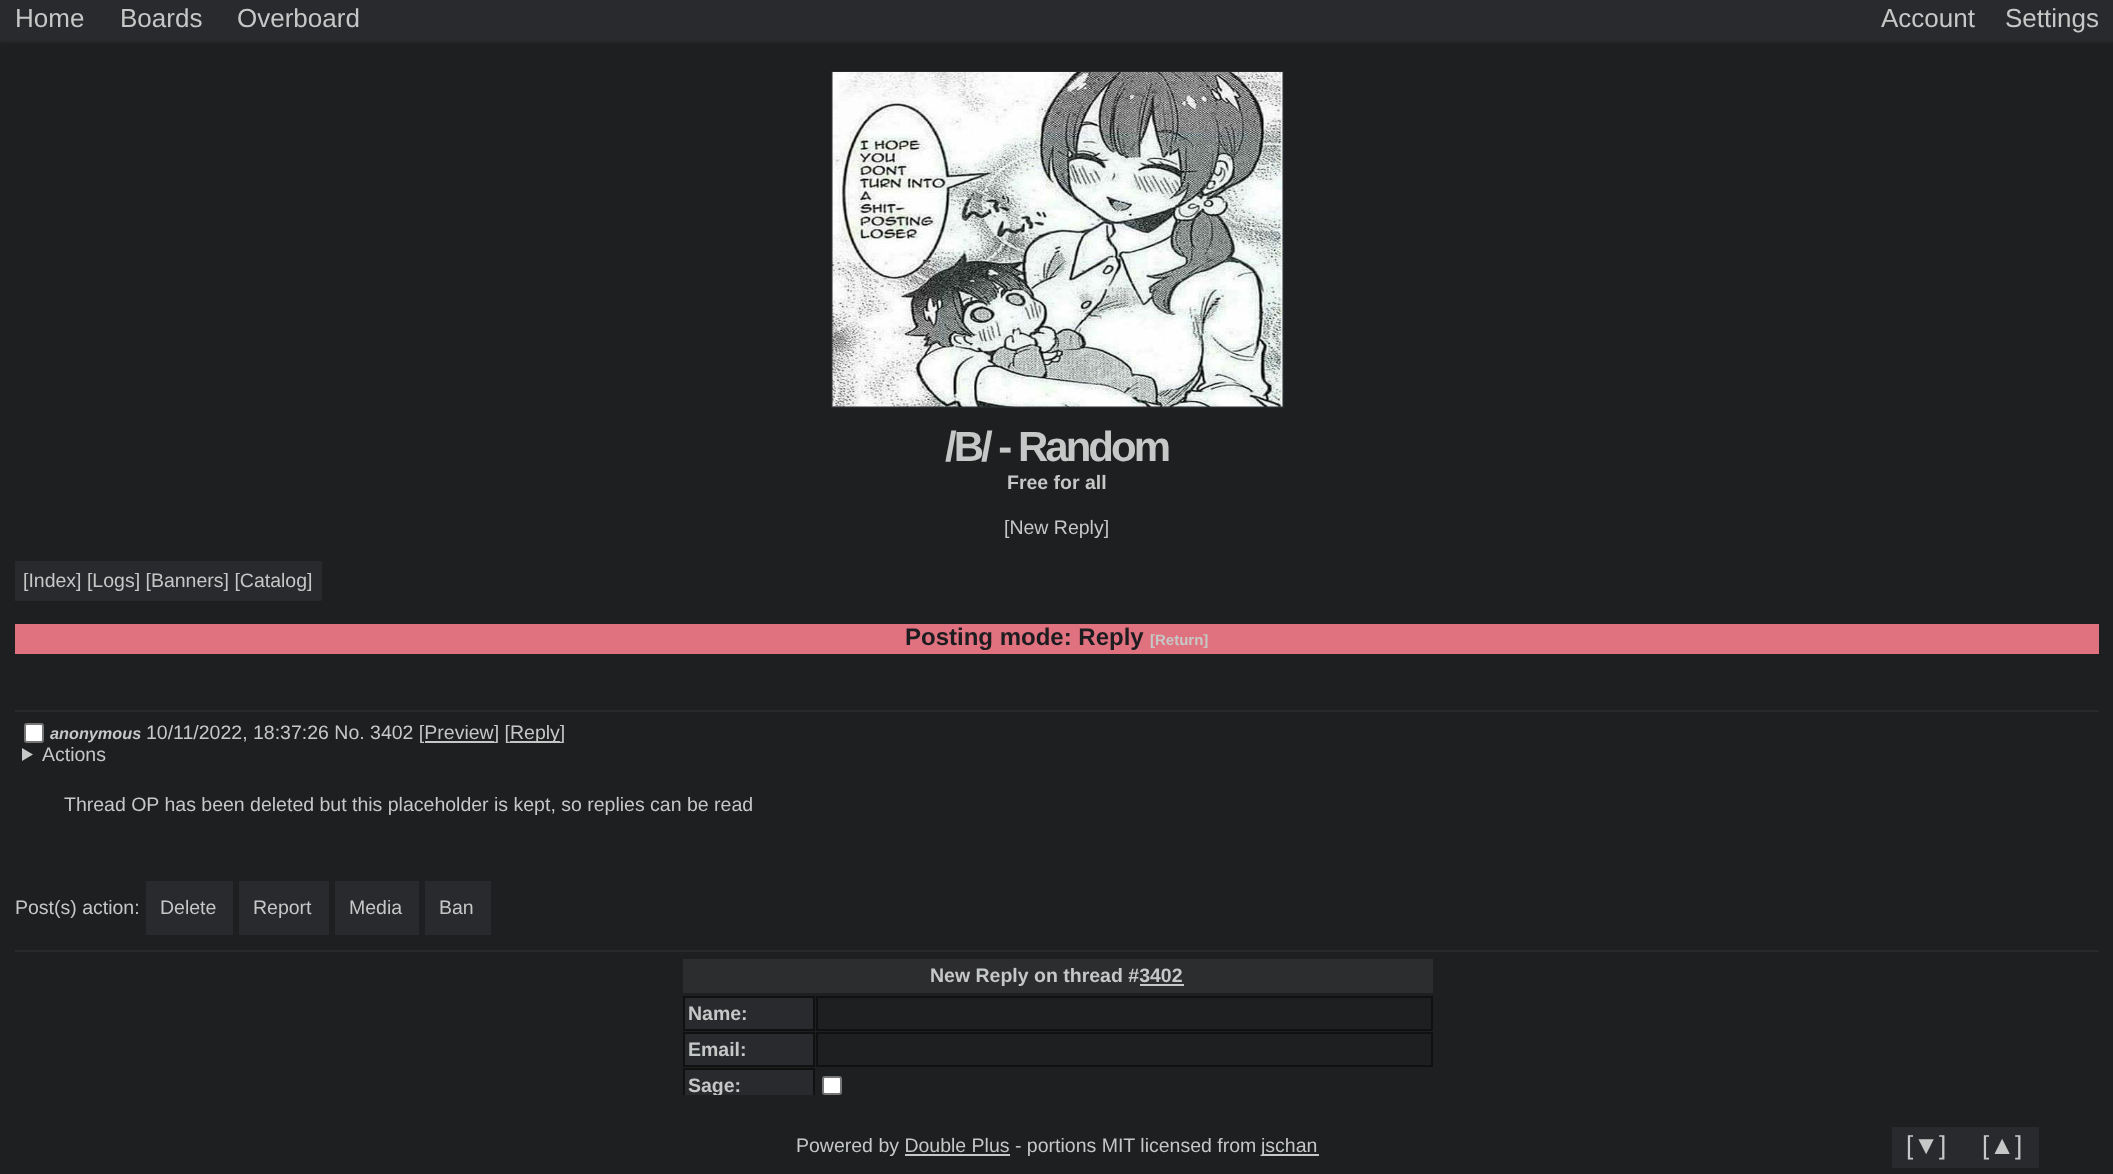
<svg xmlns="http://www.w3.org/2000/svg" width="2113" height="1174">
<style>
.a{font:26px Liberation Sans;fill:#c5c8c6}
.b{font:bold 42px Liberation Sans;letter-spacing:-3px;fill:#c5c8c6}
.c{font:bold 19.5px Liberation Sans;fill:#c5c8c6}
.d{font:19.5px Liberation Sans;fill:#c5c8c6}
.e{font:bold 24px Liberation Sans;fill:#1d1d21}
.f{font:bold 15px Liberation Sans;fill:#c5c8c6}
.g{font:italic bold 16.25px Liberation Sans;fill:#c5c8c6}
</style>
<defs>
<clipPath id="clip1"><path d="M683 1068h750v27H683z"/></clipPath>
</defs>
<rect width="100%" height="100%" fill="#1d1f21"/>
<path fill="#ffffff0f" filter="blur(2px)" d="M-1 -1h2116v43H-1z"/>
<path fill="#282a2e" d="M0 0h2113v41H0z"/>
<path fill="none" stroke="#282a2e" stroke-width="2" d="M832 72h451v335H832z"/>
<image href="1.png" x="832" y="72" width="451" height="335"/>
<path fill="#282a2e" d="M15 561h305v38H15z"/>
<path fill="#282a2e" d="M320 561h2v39H320z"/>
<path fill="#282a2e" d="M15 599h306v2H15z"/>
<path fill="#e0727f" d="M15 624h2084v30H15z"/>
<path fill="#282a2e" d="M15 710h2084v2H15z"/>
<rect fill="#fff" stroke="#767676" stroke-width="2" x="25" y="724" width="18" height="18" rx="2"/>
<path fill="#c5c8c6" d="M510 741h50v2H510z"/>
<path fill="#c5c8c6" d="M425 741h69v2H425z"/>
<path fill="#c5c8c6" d="M22 748l11 6.5l-11 6.5z"/>
<path fill="#282a2e" d="M146 881h85v52H146z"/>
<path fill="#282a2e" d="M231 881h2v54H231z"/>
<path fill="#282a2e" d="M146 933h87v2H146z"/>
<path fill="#282a2e" d="M239 881h88v52H239z"/>
<path fill="#282a2e" d="M327 881h2v54H327z"/>
<path fill="#282a2e" d="M239 933h90v2H239z"/>
<path fill="#282a2e" d="M335 881h82v52H335z"/>
<path fill="#282a2e" d="M417 881h2v54H417z"/>
<path fill="#282a2e" d="M335 933h84v2H335z"/>
<path fill="#282a2e" d="M425 881h64v52H425z"/>
<path fill="#282a2e" d="M489 881h2v54H489z"/>
<path fill="#282a2e" d="M425 933h66v2H425z"/>
<path fill="#282a2e" d="M15 950h2084v2H15z"/>
<path fill="#2b2d2f" d="M683 959h750v34H683z"/>
<path fill="#c5c8c6" d="M1140 984h44v2H1140z"/>
<path fill="#282a2e" stroke="#111" stroke-width="2" d="M684 997h130v33H684z"/>
<path fill="none" stroke="#111" stroke-width="2" d="M817 997h615v33H817z"/>
<path fill="#282a2e" stroke="#111" stroke-width="2" d="M684 1033h130v33H684z"/>
<path fill="none" stroke="#111" stroke-width="2" d="M817 1033h615v33H817z"/>
<path fill="#282a2e" d="M685 1070h128v25H685z"/>
<g clip-path="url(#clip1)">
<path fill="none" stroke="#111" stroke-width="2" d="M684 1069h130v33H684z"/>
</g>
<rect fill="#fff" stroke="#767676" stroke-width="2" x="823" y="1077" width="18" height="17" rx="2"/>
<path fill="#282a2e" d="M1892 1127h145v39H1892z"/>
<path fill="#282a2e" d="M2037 1127h2v40H2037z"/>
<path fill="#282a2e" d="M1892 1166h147v2H1892z"/>
<path fill="#c5c8c6" d="M1262 1154h57v2H1262z"/>
<path fill="#c5c8c6" d="M905 1154h105v2H905z"/>
<text class="a" x="15" y="27">Home</text>
<text class="a" x="120" y="27">Boards</text>
<text class="a" x="237" y="27">Overboard</text>
<text class="a" x="1881" y="27">Account</text>
<text class="a" x="2005" y="27">Settings</text>
<text class="b" x="945" y="461">/B/ - Random</text>
<text class="c" x="1007" y="489">Free for all</text>
<text class="d" x="1004" y="534">[New Reply]</text>
<text class="d" x="23" y="587">[Index] [Logs] [Banners] [Catalog]</text>
<text class="e" x="905" y="645">Posting mode: Reply</text>
<text class="f" x="1150" y="645">[Return]</text>
<text class="g" x="50" y="739">anonymous</text>
<text class="d" x="146" y="739">10/11/2022, 18:37:26 No. 3402 [Preview] [</text>
<text class="d" x="510" y="739">Reply]</text>
<text class="d" x="42" y="761">Actions</text>
<text class="d" x="64" y="811">Thread OP has been deleted but this placeholder is kept, so replies can be read</text>
<text class="d" x="15" y="914">Post(s) action:</text>
<text class="d" x="160" y="914">Delete</text>
<text class="d" x="253" y="914">Report</text>
<text class="d" x="349" y="914">Media</text>
<text class="d" x="439" y="914">Ban</text>
<text class="c" x="930" y="982">New Reply on thread #3402</text>
<text class="c" x="688" y="1020">Name:</text>
<text class="c" x="688" y="1056">Email:</text>
<g clip-path="url(#clip1)">
<text class="c" x="688" y="1092">Sage:</text>
</g>
<text class="a" x="1906" y="1154">[▼]</text>
<text class="a" x="1982" y="1154">[▲]</text>
<text class="d" x="796" y="1152">Powered by Double Plus - portions MIT licensed from</text>
<text class="d" x="1261" y="1152">jschan</text>
</svg>
